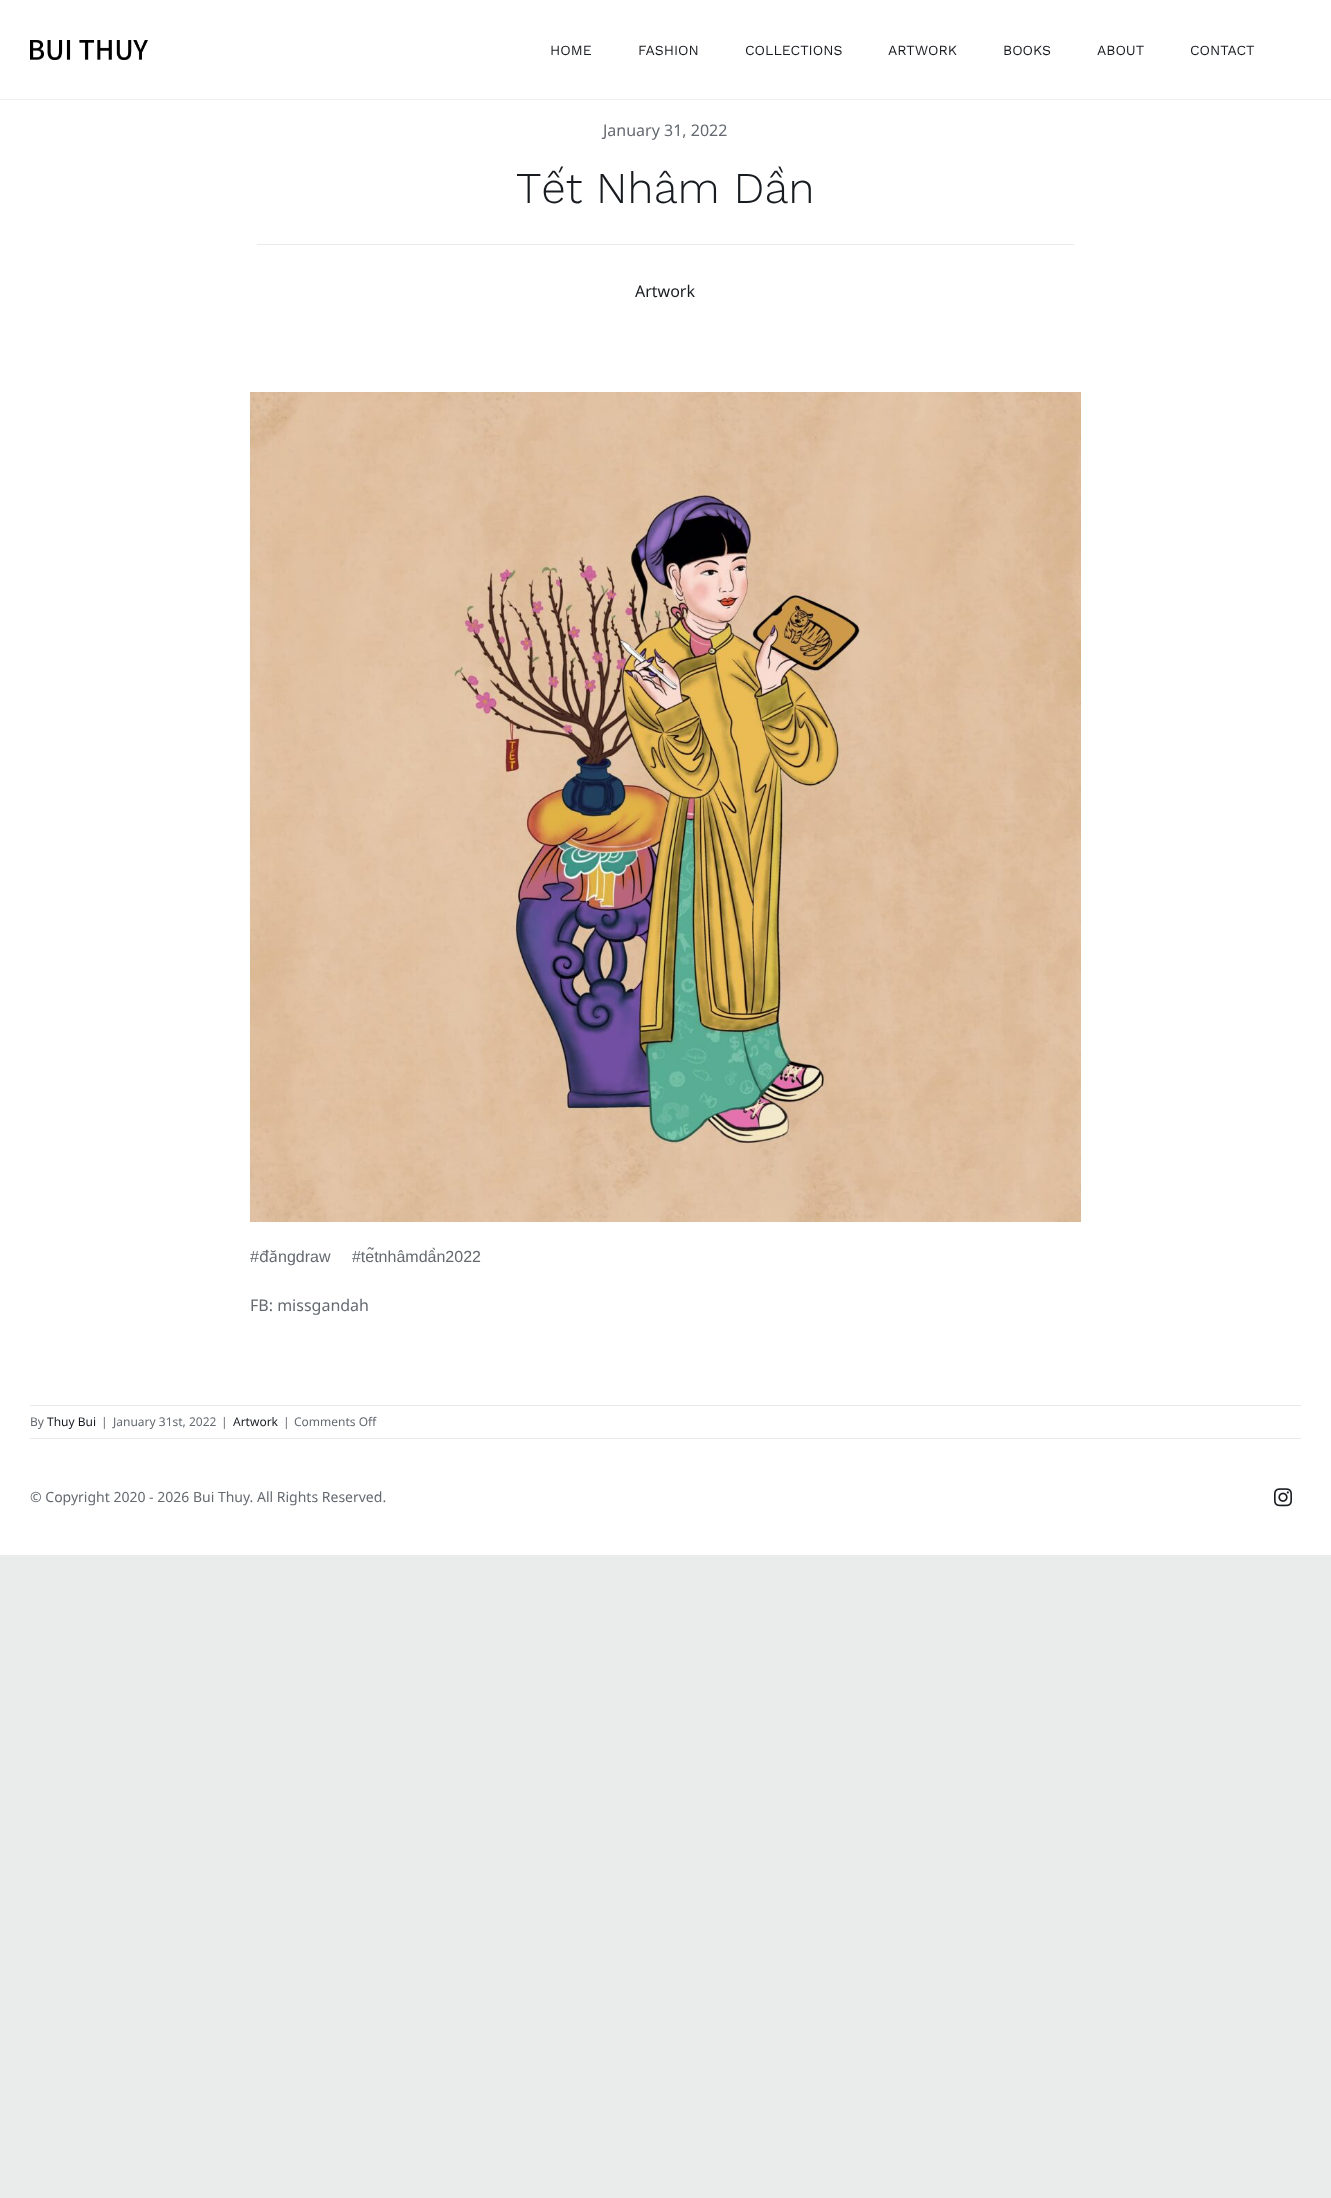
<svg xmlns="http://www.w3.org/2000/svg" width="1331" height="2198">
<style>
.a{font:14px Work Sans;fill:#181b20}
.b{font:16px Noto Sans;fill:#656a70}
.c{font:300 44px Work Sans;fill:#181b20}
.d{font:16px Noto Sans;fill:#181b20}
.e{font:16px Liberation Sans;fill:#656a70}
.f{font:12px Noto Sans;fill:#656a70}
.g{font:12px Noto Sans;fill:#181b20}
.h{font:14px Noto Sans;fill:#656a70}
</style>
<rect width="100%" height="100%" fill="#eaebeb"/>
<path fill="#fff" d="M0 0h1331v1555H0z"/>
<path fill="#eee" d="M0 99h1331v1H0z"/>
<image href="1.png" x="30" y="40" width="118" height="20"/>
<path fill="#eaeaeb" d="M257 244h817v1H257z"/>
<image href="2.png" x="250" y="392" width="831" height="830"/>
<path fill="#eaeaeb" d="M30 1405h1271v1H30z"/>
<path fill="#eaeaeb" d="M30 1438h1271v1H30z"/>
<image href="3.png" x="1274" y="1488" width="18" height="19"/>
<text class="a" x="550" y="55">HOME</text>
<text class="a" x="638" y="55">FASHION</text>
<text class="a" x="745" y="55">COLLECTIONS</text>
<text class="a" x="888" y="55">ARTWORK</text>
<text class="a" x="1003" y="55">BOOKS</text>
<text class="a" x="1097" y="55">ABOUT</text>
<text class="a" x="1190" y="55">CONTACT</text>
<text class="b" x="603" y="136">January 31, 2022</text>
<text class="c" x="516" y="203">Tết Nhâm Dần</text>
<text class="d" x="635" y="297">Artwork</text>
<text class="e" x="250" y="1262">#</text>
<text class="b" x="259" y="1262">đă</text>
<text class="e" x="278" y="1262" word-spacing="17">ngdraw #tếtnhâmdần2022</text>
<text class="b" x="250" y="1311">FB: missgandah</text>
<text class="f" x="30" y="1426">By</text>
<text class="g" x="47" y="1426">Thuy Bui</text>
<text class="f" x="101" y="1426">|</text>
<text class="f" x="113" y="1426">January 31st, 2022</text>
<text class="f" x="221" y="1426">|</text>
<text class="g" x="233" y="1426">Artwork</text>
<text class="f" x="283" y="1426">|</text>
<text class="f" x="294" y="1426">Comments Off</text>
<text class="h" x="30" y="1502">© Copyright 2020 - 2026 Bui Thuy. All Rights Reserved.</text>
</svg>
